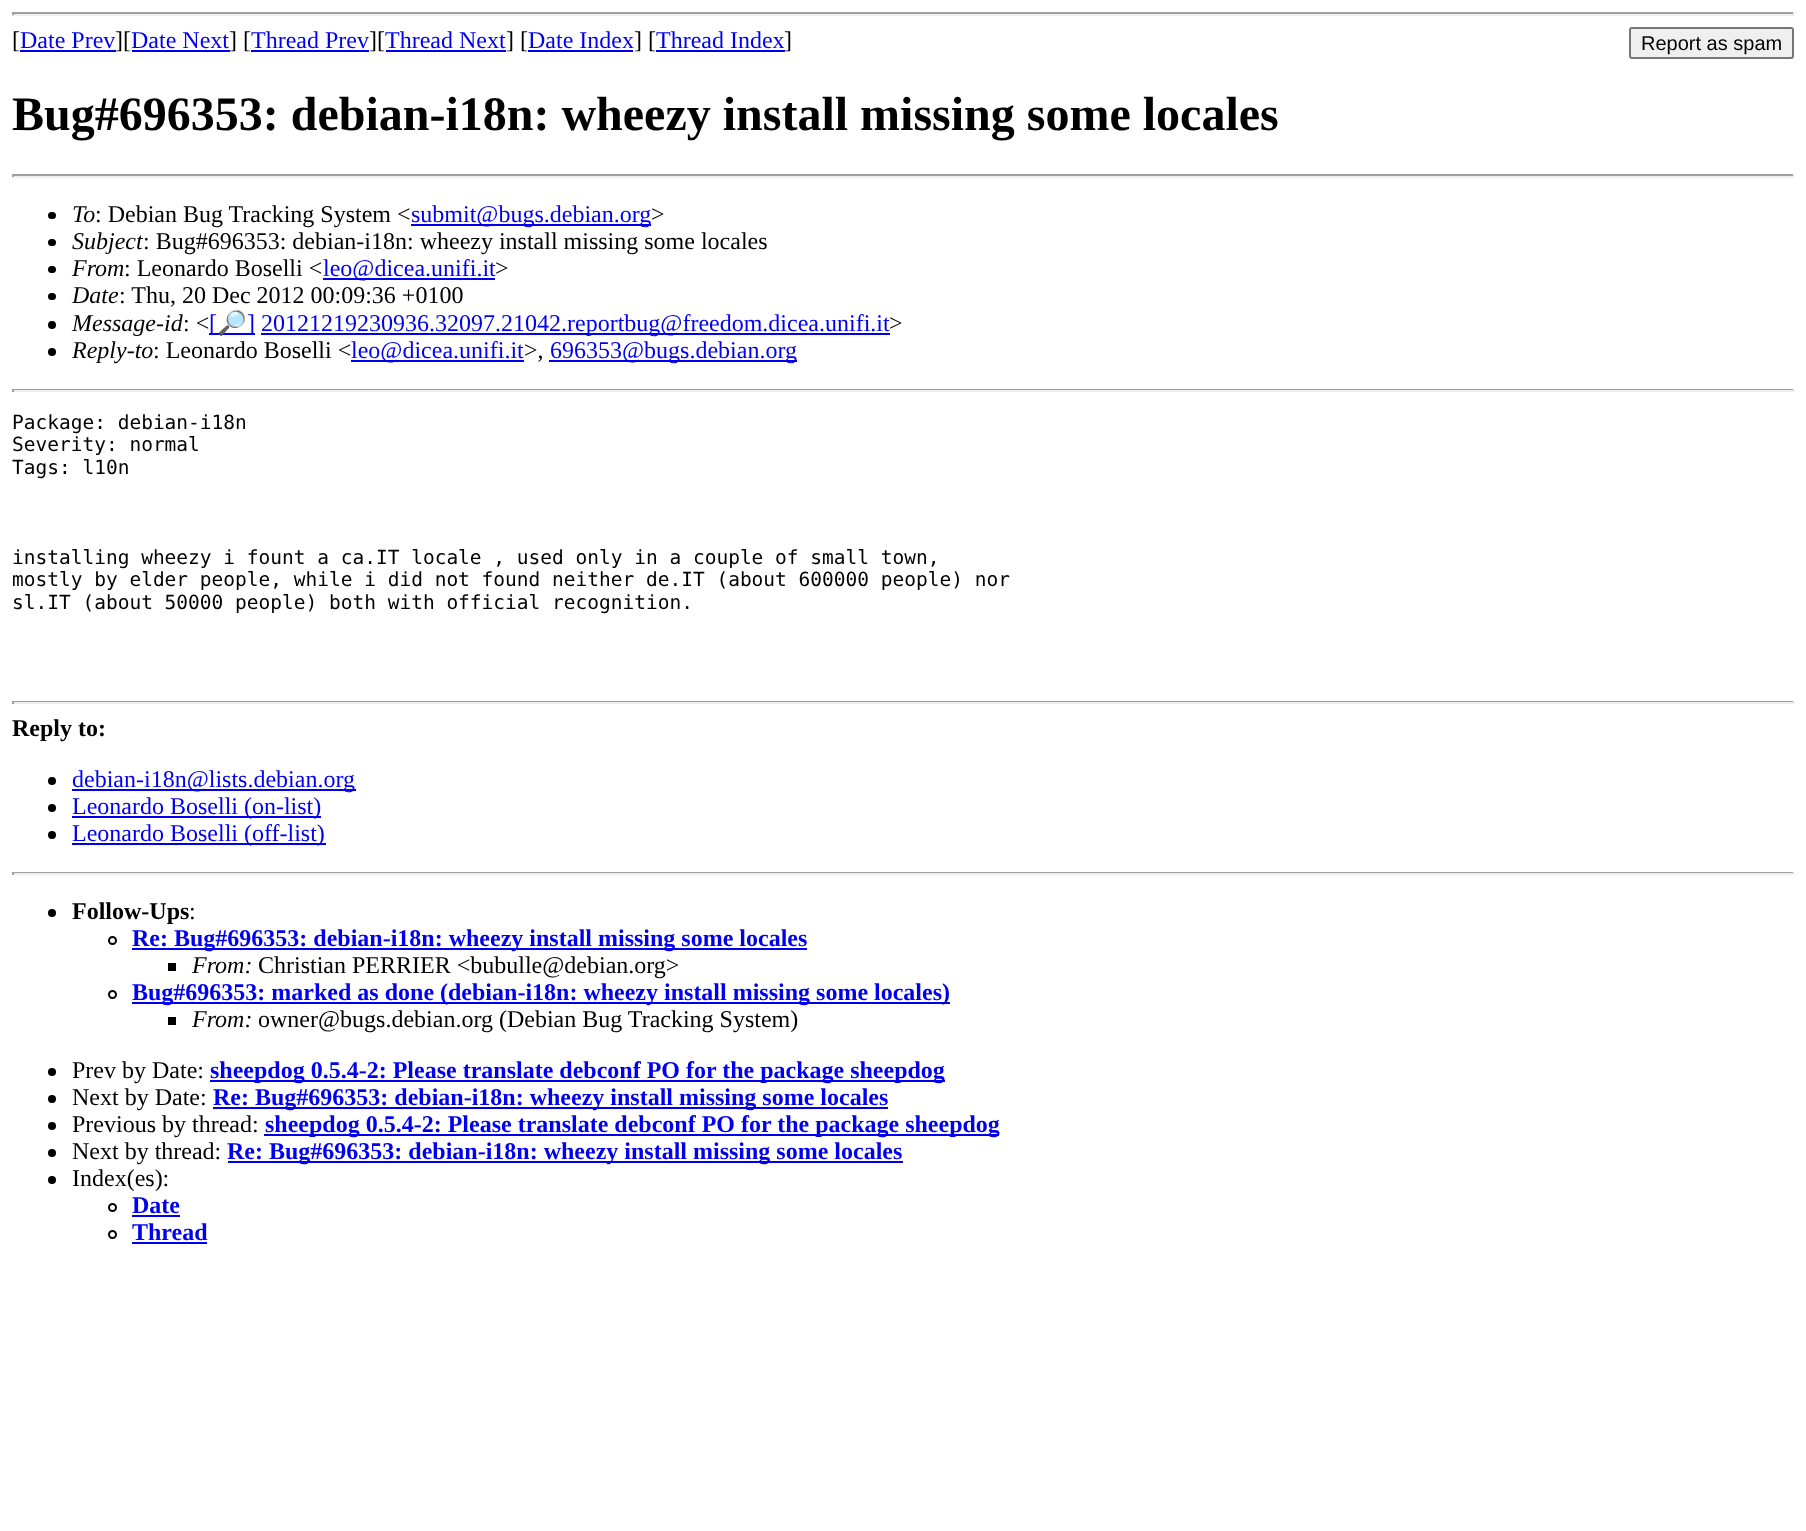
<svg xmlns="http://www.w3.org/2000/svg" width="1806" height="1531">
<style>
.a{font:24px Liberation Serif;fill:#000}
.b{font:24px Liberation Serif;fill:#00e}
.c{font:20px Liberation Sans;fill:#000}
.d{font:bold 48px Liberation Serif;fill:#000}
.e{font:italic 24px Liberation Serif;fill:#000}
.f{font:24px Noto Color Emoji;fill:#00e}
.g{font:19.5px DejaVu Sans Mono;fill:#000}
.h{font:bold 24px Liberation Serif;fill:#000}
.i{font:bold 24px Liberation Serif;fill:#00e}
</style>
<rect width="100%" height="100%" fill="#fff"/>
<path fill="#9f9f9f" d="M12 12h1782v2H12z"/>
<path fill="#eee" d="M1793 12h2v3H1793z"/>
<path fill="#eee" d="M12 14h1782v2H12z"/>
<path fill="#9f9f9f" d="M12 12h2v3H12z"/>
<path fill="#00e" d="M20 50h96v2H20z"/>
<path fill="#00e" d="M132 50h98v2H132z"/>
<path fill="#00e" d="M251 50h118v2H251z"/>
<path fill="#00e" d="M386 50h120v2H386z"/>
<path fill="#00e" d="M528 50h105v2H528z"/>
<path fill="#00e" d="M656 50h129v2H656z"/>
<rect fill="#efefef" stroke="#767676" stroke-width="2" x="1630" y="28" width="163" height="30" rx="2"/>
<path fill="#9f9f9f" d="M12 174h1782v2H12z"/>
<path fill="#eee" d="M1793 174h2v3H1793z"/>
<path fill="#eee" d="M12 176h1782v2H12z"/>
<path fill="#9f9f9f" d="M12 174h2v3H12z"/>
<rect fill="#000" x="48" y="212" width="8" height="7" rx="3.5"/>
<path fill="#00e" d="M411 224h240v2H411z"/>
<rect fill="#000" x="48" y="239" width="8" height="7" rx="3.5"/>
<rect fill="#000" x="48" y="266" width="8" height="7" rx="3.5"/>
<path fill="#00e" d="M323 278h172v2H323z"/>
<rect fill="#000" x="48" y="293" width="8" height="7" rx="3.5"/>
<circle fill="#000" cx="52" cy="325" r="4"/>
<path fill="#00e" d="M209 333h46v2H209z"/>
<path fill="#00e" d="M261 333h629v2H261z"/>
<circle fill="#000" cx="52" cy="352" r="4"/>
<path fill="#00e" d="M351 360h173v2H351z"/>
<path fill="#00e" d="M549 360h248v2H549z"/>
<path fill="#9f9f9f" d="M12 389h1782v1H12z"/>
<path fill="#eee" d="M1793 389h2v3H1793z"/>
<path fill="#eee" d="M12 390h1782v2H12z"/>
<path fill="#9f9f9f" d="M12 389h2v3H12z"/>
<path fill="#9f9f9f" d="M12 701h1782v1H12z"/>
<path fill="#eee" d="M1793 701h2v3H1793z"/>
<path fill="#eee" d="M12 702h1782v2H12z"/>
<path fill="#9f9f9f" d="M12 701h2v3H12z"/>
<circle fill="#000" cx="52" cy="781" r="4"/>
<path fill="#00e" d="M72 789h284v2H72z"/>
<circle fill="#000" cx="52" cy="808" r="4"/>
<path fill="#00e" d="M72 816h249v2H72z"/>
<circle fill="#000" cx="52" cy="835" r="4"/>
<path fill="#00e" d="M72 843h254v2H72z"/>
<path fill="#9f9f9f" d="M12 872h1782v1H12z"/>
<path fill="#eee" d="M1793 872h2v3H1793z"/>
<path fill="#eee" d="M12 873h1782v2H12z"/>
<path fill="#9f9f9f" d="M12 872h2v3H12z"/>
<circle fill="#000" cx="52" cy="913" r="4"/>
<circle fill="none" stroke="#000" stroke-width="2" cx="112.5" cy="940.5" r="3.5"/>
<path fill="#00e" d="M132 948h675v2H132z"/>
<path fill="#000" d="M168 963h8v8H168z"/>
<circle fill="none" stroke="#000" stroke-width="2" cx="112.5" cy="994.5" r="3.5"/>
<path fill="#00e" d="M132 1002h818v2H132z"/>
<path fill="#000" d="M168 1017h8v8H168z"/>
<circle fill="#000" cx="52" cy="1072" r="4"/>
<path fill="#00e" d="M210 1080h735v2H210z"/>
<circle fill="#000" cx="52" cy="1099" r="4"/>
<path fill="#00e" d="M213 1107h675v2H213z"/>
<circle fill="#000" cx="52" cy="1126" r="4"/>
<path fill="#00e" d="M264 1134h735v2H264z"/>
<circle fill="#000" cx="52" cy="1153" r="4"/>
<path fill="#00e" d="M228 1161h675v2H228z"/>
<circle fill="#000" cx="52" cy="1180" r="4"/>
<circle fill="none" stroke="#000" stroke-width="2" cx="112.5" cy="1207.5" r="3.5"/>
<path fill="#00e" d="M132 1215h48v2H132z"/>
<circle fill="none" stroke="#000" stroke-width="2" cx="112.5" cy="1234.5" r="3.5"/>
<path fill="#00e" d="M132 1242h75v2H132z"/>
<text class="a" x="12" y="48">[</text>
<text class="b" x="20" y="48">Date Prev</text>
<text class="a" x="115" y="48">][</text>
<text class="b" x="131" y="48">Date Next</text>
<text class="a" x="229" y="48">] [</text>
<text class="b" x="251" y="48">Thread Prev</text>
<text class="a" x="369" y="48">][</text>
<text class="b" x="385" y="48">Thread Next</text>
<text class="a" x="506" y="48">] [</text>
<text class="b" x="528" y="48">Date Index</text>
<text class="a" x="634" y="48">] [</text>
<text class="b" x="656" y="48">Thread Index</text>
<text class="a" x="784" y="48">]</text>
<text class="c" x="1641" y="50">Report as spam</text>
<text class="d" x="12" y="130">Bug#696353: debian-i18n: wheezy install missing some locales</text>
<text class="e" x="72" y="222">To</text>
<text class="a" x="95" y="222">: Debian Bug Tracking System &lt;</text>
<text class="b" x="411" y="222">submit@bugs.debian.org</text>
<text class="a" x="651" y="222">&gt;</text>
<text class="e" x="72" y="249">Subject</text>
<text class="a" x="143" y="249">: Bug#696353: debian-i18n: wheezy install missing some locales</text>
<text class="e" x="72" y="276">From</text>
<text class="a" x="124" y="276">: Leonardo Boselli &lt;</text>
<text class="b" x="323" y="276">leo@dicea.unifi.it</text>
<text class="a" x="495" y="276">&gt;</text>
<text class="e" x="72" y="303">Date</text>
<text class="a" x="119" y="303">: Thu, 20 Dec 2012 00:09:36 +0100</text>
<text class="e" x="72" y="331">Message-id</text>
<text class="a" x="183" y="331">: &lt;</text>
<text class="b" x="209" y="331">[</text>
<text class="f" x="217" y="331">🔎</text>
<text class="b" x="247" y="331">]</text>
<text class="b" x="261" y="331">20121219230936.32097.21042.reportbug@freedom.dicea.unifi.it</text>
<text class="a" x="889" y="331">&gt;</text>
<text class="e" x="72" y="358">Reply-to</text>
<text class="a" x="153" y="358">: Leonardo Boselli &lt;</text>
<text class="b" x="351" y="358">leo@dicea.unifi.it</text>
<text class="a" x="524" y="358">&gt;,</text>
<text class="b" x="550" y="358">696353@bugs.debian.org</text>
<text class="g" x="12" y="429">Package: debian-i18n</text>
<text class="g" x="12" y="451">Severity: normal</text>
<text class="g" x="12" y="474">Tags: l10n</text>
<text class="g" x="12" y="564">installing wheezy i fount a ca.IT locale , used only in a couple of small town,</text>
<text class="g" x="12" y="586">mostly by elder people, while i did not found neither de.IT (about 600000 people) nor</text>
<text class="g" x="12" y="609">sl.IT (about 50000 people) both with official recognition.</text>
<text class="h" x="12" y="736">Reply to:</text>
<text class="b" x="72" y="787">debian-i18n@lists.debian.org</text>
<text class="b" x="72" y="814">Leonardo Boselli (on-list)</text>
<text class="b" x="72" y="841">Leonardo Boselli (off-list)</text>
<text class="h" x="72" y="919">Follow-Ups</text>
<text class="a" x="189" y="919">:</text>
<text class="i" x="132" y="946">Re: Bug#696353: debian-i18n: wheezy install missing some locales</text>
<text class="e" x="192" y="973">From:</text>
<text class="a" x="258" y="973">Christian PERRIER &lt;bubulle@debian.org&gt;</text>
<text class="i" x="132" y="1000">Bug#696353: marked as done (debian-i18n: wheezy install missing some locales)</text>
<text class="e" x="192" y="1027">From:</text>
<text class="a" x="258" y="1027">owner@bugs.debian.org (Debian Bug Tracking System)</text>
<text class="a" x="72" y="1078">Prev by Date:</text>
<text class="i" x="210" y="1078">sheepdog 0.5.4-2: Please translate debconf PO for the package sheepdog</text>
<text class="a" x="72" y="1105">Next by Date:</text>
<text class="i" x="213" y="1105">Re: Bug#696353: debian-i18n: wheezy install missing some locales</text>
<text class="a" x="72" y="1132">Previous by thread:</text>
<text class="i" x="265" y="1132">sheepdog 0.5.4-2: Please translate debconf PO for the package sheepdog</text>
<text class="a" x="72" y="1159">Next by thread:</text>
<text class="i" x="227" y="1159">Re: Bug#696353: debian-i18n: wheezy install missing some locales</text>
<text class="a" x="72" y="1186">Index(es):</text>
<text class="i" x="132" y="1213">Date</text>
<text class="i" x="132" y="1240">Thread</text>
</svg>
